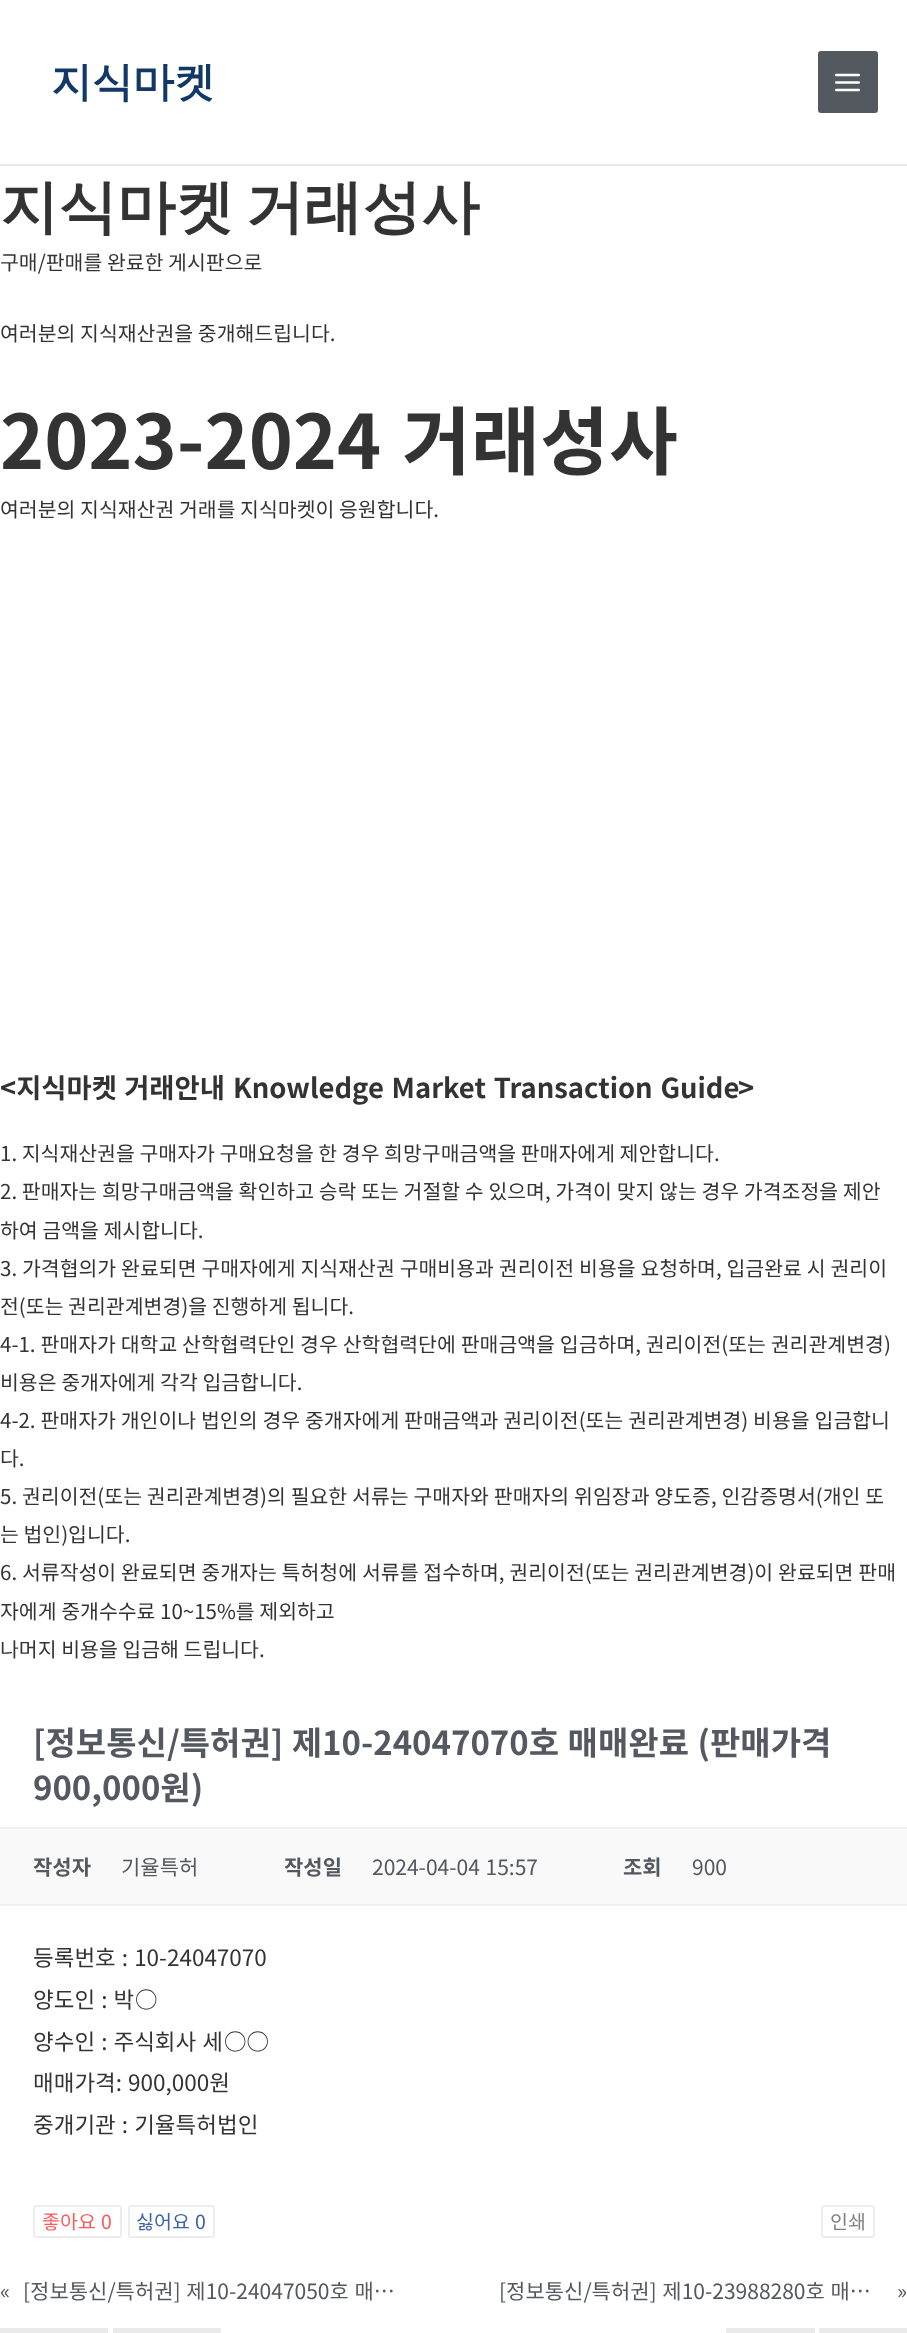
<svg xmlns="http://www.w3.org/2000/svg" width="907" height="2333">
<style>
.a{font:bold 41px WenQuanYi Zen Hei;fill:#113866}
.b{font:bold 58.5px WenQuanYi Zen Hei;fill:#333}
.c{font:20.5px Noto Sans KR;fill:#333}
.d{font:bold 75px Noto Sans KR;fill:#333}
.e{font:bold 27.4px Noto Sans KR;fill:#333}
.f{font:bold 33px Noto Sans KR;fill:#545861}
.g{font:bold 21px Noto Sans KR;fill:#545861}
.h{font:21px Noto Sans KR;fill:#545861}
.i{font:22.5px Noto Sans KR;fill:#333}
.j{font:19.5px Noto Sans KR;fill:#ff5959}
.k{font:19.5px Noto Sans KR;fill:#3d62aa}
.l{font:19.5px Noto Sans KR;fill:#808080}
</style>
<rect width="100%" height="100%" fill="#fff"/>
<path fill="#eaeaea" d="M0 164h907v2H0z"/>
<rect fill="#54595f" x="818" y="51" width="60" height="62" rx="3"/>
<image href="1.png" x="835" y="73" width="25" height="19"/>
<path fill="#f9f9f9" d="M0 1829h907v75H0z"/>
<path fill="#f1f1f1" d="M0 1827h907v2H0z"/>
<path fill="#f1f1f1" d="M0 1904h907v2H0z"/>
<rect fill="none" stroke="#ededed" stroke-width="2" x="34" y="2206" width="87" height="31" rx="2"/>
<rect fill="none" stroke="#ededed" stroke-width="2" x="129" y="2206" width="85" height="31" rx="2"/>
<rect fill="none" stroke="#ededed" stroke-width="2" x="822" y="2206" width="52" height="31" rx="2"/>
<path fill="#eaeaea" d="M0 2328h108v5H0z"/>
<path fill="#eaeaea" d="M113 2328h108v5H113z"/>
<path fill="#eaeaea" d="M726 2328h89v5H726z"/>
<path fill="#eaeaea" d="M819 2328h88v5H819z"/>
<text class="a" x="51" y="96">지식마켓</text>
<text class="b" x="0" y="227" word-spacing="-6">지식마켓 거래성사</text>
<text class="c" x="0" y="270">구매/판매를 완료한 게시판으로</text>
<text class="c" x="0" y="341">여러분의 지식재산권을 중개해드립니다.</text>
<text class="d" x="0" y="469">2023-2024</text>
<text class="d" x="402" y="469">거래성사</text>
<text class="c" x="0" y="517">여러분의 지식재산권 거래를 지식마켓이 응원합니다.</text>
<text class="e" x="0" y="1098" word-spacing="1">&lt;지식마켓 거래안내</text>
<text class="e" x="233" y="1098" word-spacing="1.5">Knowledge Market Transaction Guide</text>
<text class="e" x="738" y="1098">&gt;</text>
<text class="c" x="0" y="1161">1. 지식재산권을 구매자가 구매요청을 한 경우 희망구매금액을 판매자에게 제안합니다.</text>
<text class="c" x="0" y="1199" word-spacing="0.1">2. 판매자는 희망구매금액을 확인하고 승락 또는 거절할 수 있으며, 가격이 맞지 않는 경우 가격조정을 제안</text>
<text class="c" x="0" y="1238">하여 금액을 제시합니다.</text>
<text class="c" x="0" y="1276" word-spacing="0.25">3. 가격협의가 완료되면 구매자에게 지식재산권 구매비용과 권리이전 비용을 요청하며, 입금완료 시 권리이</text>
<text class="c" x="0" y="1314">전(또는 권리관계변경)을 진행하게 됩니다.</text>
<text class="c" x="0" y="1352" word-spacing="0.25">4-1. 판매자가 대학교 산학협력단인 경우 산학협력단에 판매금액을 입금하며, 권리이전(또는 권리관계변경)</text>
<text class="c" x="0" y="1390">비용은 중개자에게 각각 입금합니다.</text>
<text class="c" x="0" y="1428" word-spacing="0.25">4-2. 판매자가 개인이나 법인의 경우 중개자에게 판매금액과 권리이전(또는 권리관계변경) 비용을 입금합니</text>
<text class="c" x="0" y="1466">다.</text>
<text class="c" x="0" y="1504" word-spacing="0.25">5. 권리이전(또는 권리관계변경)의 필요한 서류는 구매자와 판매자의 위임장과 양도증, 인감증명서(개인 또</text>
<text class="c" x="0" y="1542">는 법인)입니다.</text>
<text class="c" x="0" y="1580" word-spacing="0.25">6. 서류작성이 완료되면 중개자는 특허청에 서류를 접수하며, 권리이전(또는 권리관계변경)이 완료되면 판매</text>
<text class="c" x="0" y="1619">자에게 중개수수료 10~15%를 제외하고</text>
<text class="c" x="0" y="1657">나머지 비용을 입금해 드립니다.</text>
<text class="f" x="33" y="1755" word-spacing="1">[정보통신/특허권] 제10-24047070호 매매완료 (판매가격</text>
<text class="f" x="33" y="1800">900,000원)</text>
<text class="g" x="33" y="1875">작성자</text>
<text class="h" x="121" y="1875">기율특허</text>
<text class="g" x="284" y="1875">작성일</text>
<text class="h" x="372" y="1875" word-spacing="1">2024-04-04 15:57</text>
<text class="g" x="623" y="1875">조회</text>
<text class="h" x="692" y="1875">900</text>
<text class="i" x="33" y="1966" word-spacing="1">등록번호 : 10-24047070</text>
<text class="i" x="33" y="2008" word-spacing="1">양도인 : 박</text>
<text class="i" x="135" y="2008">○</text>
<text class="i" x="33" y="2050" word-spacing="1">양수인 : 주식회사 세</text>
<text class="i" x="224" y="2050">○○</text>
<text class="i" x="33" y="2091" word-spacing="1">매매가격: 900,000원</text>
<text class="i" x="33" y="2133" word-spacing="1">중개기관 : 기율특허법인</text>
<text class="j" x="42" y="2229">좋아요</text>
<text class="j" x="101" y="2229">0</text>
<text class="k" x="136" y="2229">싫어요</text>
<text class="k" x="195" y="2229">0</text>
<text class="l" x="830" y="2229">인쇄</text>
<text class="h" x="0" y="2299">«</text>
<text class="h" x="23" y="2299" word-spacing="1">[정보통신/특허권] 제10-24047050호 매…</text>
<text class="h" x="499" y="2299" word-spacing="1">[정보통신/특허권] 제10-23988280호 매…</text>
<text class="h" x="897" y="2299">»</text>
</svg>
